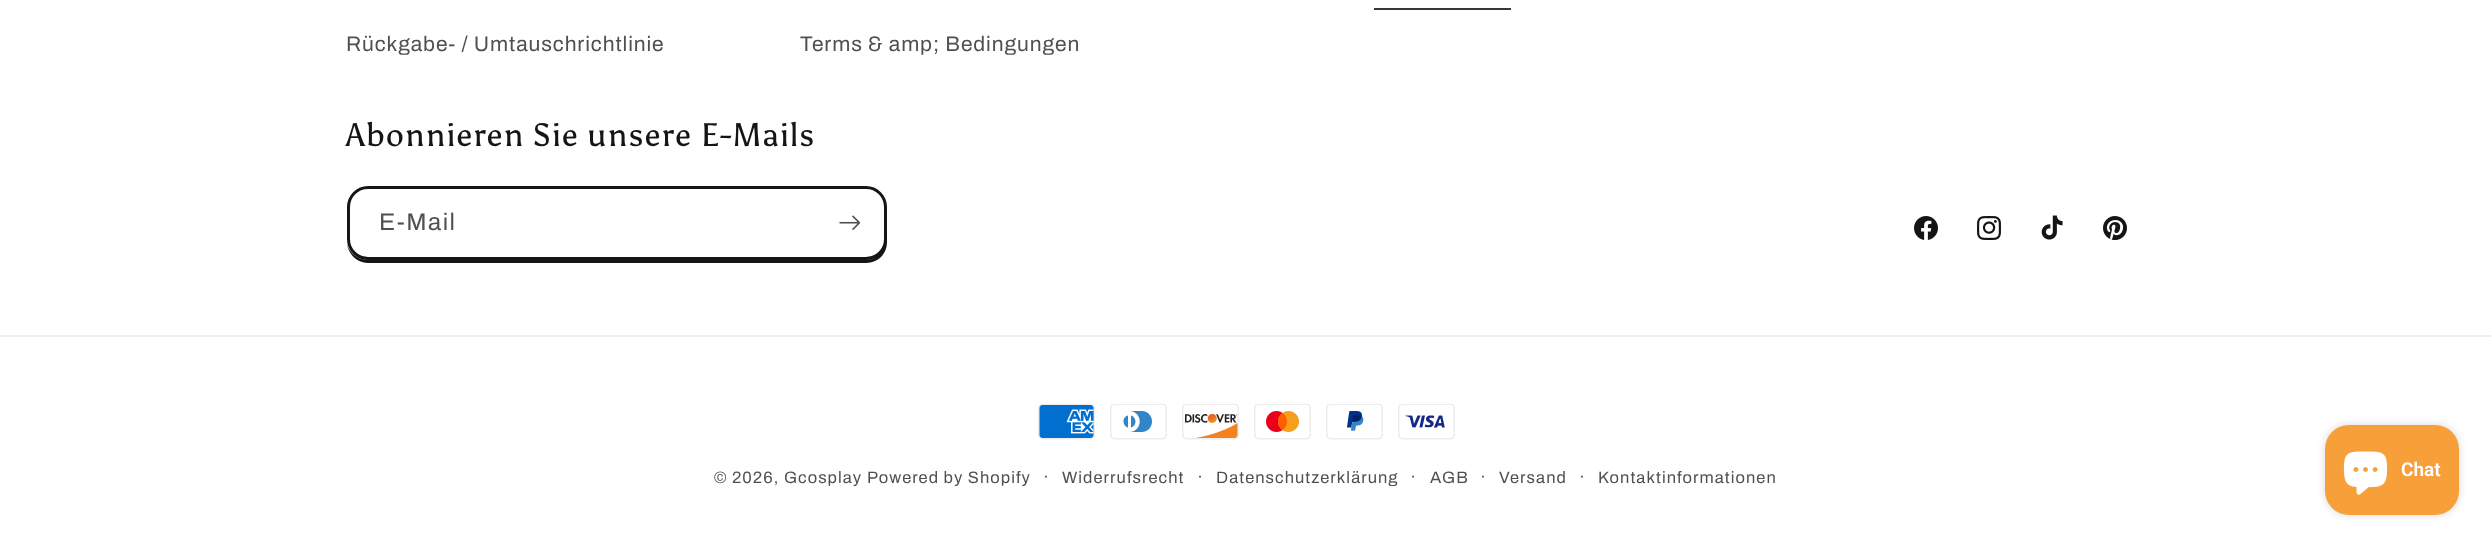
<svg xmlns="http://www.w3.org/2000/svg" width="2491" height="545">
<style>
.a{font:21px Archivo;letter-spacing:0.9px;fill:#4f5050}
.b{font:32.4px Asul;letter-spacing:1.1px;fill:#141516}
.c{font:24px Archivo;letter-spacing:1.5px;fill:#4f5050}
.d{font:16.5px Archivo;letter-spacing:1.05px;fill:#4f5050}
.e{font:18px Archivo;letter-spacing:1.05px;fill:#4f5050}
.f{font:600 19px Roboto;fill:#fff}
</style>
<rect width="100%" height="100%" fill="#fff"/>
<path fill="#373839" d="M1374 8h137v2H1374z"/>
<path fill="#141516" d="M347 243c1 11 10 20 21 20h498c12 0 21-9 21-21v-32l-1-5v33c0 12-9 22-20 22h-498c-10 0-19-7-21-17z"/>
<rect fill="none" stroke="#141516" stroke-width="3" x="348.5" y="187.5" width="537" height="71" rx="19.5"/>
<image href="1.png" x="839" y="215" width="22" height="15"/>
<image href="2.png" x="1914" y="216" width="24" height="24"/>
<image href="3.png" x="1977" y="216" width="24" height="24"/>
<image href="4.png" x="2041" y="215" width="22" height="25"/>
<image href="5.png" x="2103" y="216" width="24" height="25"/>
<path fill="#ececec" d="M0 335h2491v2H0z"/>
<image href="6.png" x="1038" y="404" width="57" height="36"/>
<image href="7.png" x="1110" y="404" width="57" height="36"/>
<image href="8.png" x="1182" y="404" width="57" height="36"/>
<image href="9.png" x="1254" y="404" width="57" height="36"/>
<image href="10.png" x="1326" y="404" width="57" height="36"/>
<image href="11.png" x="1398" y="404" width="57" height="36"/>
<rect fill="#00000026" filter="blur(4px)" x="2325" y="425" width="134" height="90" rx="24"/>
<rect fill="#f7a03a" x="2325" y="425" width="134" height="90" rx="24"/>
<image href="12.png" x="2343" y="451" width="45" height="44"/>
<text class="a" x="346" y="51">Rückgabe- / Umtauschrichtlinie</text>
<text class="a" x="800" y="51">Terms &amp; amp; Bedingungen</text>
<text class="b" x="346" y="146">Abonnieren Sie unsere E-Mails</text>
<text class="c" x="379" y="230">E-Mail</text>
<text class="d" x="714" y="483">© 2026, Gcosplay</text>
<text class="d" x="867" y="483">Powered by Shopify</text>
<text class="e" x="1043" y="483">·</text>
<text class="d" x="1062" y="483">Widerrufsrecht</text>
<text class="e" x="1197" y="483">·</text>
<text class="d" x="1216" y="483">Datenschutzerklärung</text>
<text class="e" x="1410" y="483">·</text>
<text class="d" x="1430" y="483">AGB</text>
<text class="e" x="1480" y="483">·</text>
<text class="d" x="1499" y="483">Versand</text>
<text class="e" x="1579" y="483">·</text>
<text class="d" x="1598" y="483">Kontaktinformationen</text>
<text class="f" x="2401" y="476">Chat</text>
</svg>
